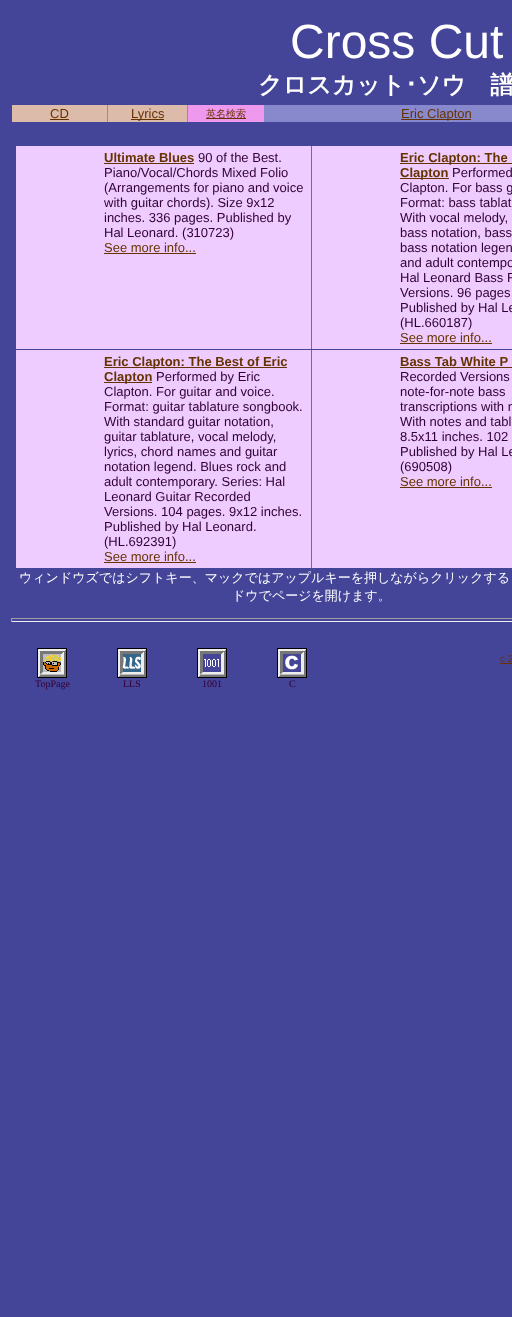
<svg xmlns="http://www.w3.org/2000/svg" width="512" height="1317">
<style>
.a{font:48px Liberation Sans;fill:#fff}
.b{font:bold 24px WenQuanYi Zen Hei;fill:#fff}
.c{font:bold 24px IPAGothic;fill:#fff}
.d{font:13px Liberation Sans;fill:#630}
.e{font:500 10px WenQuanYi Zen Hei;fill:#630}
.f{font:bold 13px Liberation Sans;fill:#630}
.g{font:13px Liberation Sans;fill:#303}
.h{font:500 13px WenQuanYi Zen Hei;fill:#fff}
.i{font:10px Liberation Sans;fill:#630}
.j{font:10px Liberation Serif;fill:#303}
</style>
<rect width="100%" height="100%" fill="#449"/>
<path fill="#88c" d="M107 105h405v17H107z"/>
<path fill="#dba" d="M12 105h95v17H12z"/>
<path fill="#630" d="M50 119h19v1H50z"/>
<path fill="#dba" d="M108 105h79v17H108z"/>
<path fill="#630" d="M131 119h33v1H131z"/>
<path fill="#e9e" d="M188 105h76v17H188z"/>
<path fill="#630" d="M206 118h40v1H206z"/>
<path fill="#630" d="M401 119h70v1H401z"/>
<path fill="#66c" d="M311 146h1v203H311z"/>
<path fill="#ecf" d="M16 146h295v203H16z"/>
<path fill="#630" d="M104 163h90v1H104z"/>
<path fill="#630" d="M104 253h92v1H104z"/>
<path fill="#ecf" d="M312 146h200v203H312z"/>
<path fill="#630" d="M400 163h112v1H400z"/>
<path fill="#630" d="M400 178h49v1H400z"/>
<path fill="#630" d="M400 343h92v1H400z"/>
<path fill="#66c" d="M311 350h1v218H311z"/>
<path fill="#ecf" d="M16 350h295v218H16z"/>
<path fill="#630" d="M104 367h183v1H104z"/>
<path fill="#630" d="M104 382h48v1H104z"/>
<path fill="#630" d="M104 562h92v1H104z"/>
<path fill="#ecf" d="M312 350h200v218H312z"/>
<path fill="#630" d="M400 367h112v1H400z"/>
<path fill="#630" d="M400 487h92v1H400z"/>
<path fill="#9f9f9f" d="M11 618h501v1H11z"/>
<path fill="#eee" d="M11 621h501v1H11z"/>
<path fill="#9f9f9f" d="M11 618h1v4H11z"/>
<path fill="#630" d="M500 663h12v1H500z"/>
<image href="1.png" x="37" y="648" width="30" height="30"/>
<image href="2.png" x="117" y="648" width="30" height="30"/>
<image href="3.png" x="197" y="648" width="30" height="30"/>
<image href="4.png" x="277" y="648" width="30" height="30"/>
<text class="a" x="290" y="58">Cross Cut</text>
<text class="b" x="258" y="93">クロスカット</text>
<text class="c" x="405" y="93">･</text>
<text class="b" x="417" y="93">ソウ　譜</text>
<text class="d" x="50" y="118">CD</text>
<text class="d" x="131" y="118">Lyrics</text>
<text class="e" x="206" y="117">英名検索</text>
<text class="d" x="401" y="118">Eric Clapton</text>
<text class="f" x="104" y="162">Ultimate Blues</text>
<text class="g" x="198" y="162">90 of the Best.</text>
<text class="g" x="104" y="177">Piano/Vocal/Chords Mixed Folio</text>
<text class="g" x="104" y="192">(Arrangements for piano and voice</text>
<text class="g" x="104" y="207">with guitar chords). Size 9x12</text>
<text class="g" x="104" y="222">inches. 336 pages. Published by</text>
<text class="g" x="104" y="237">Hal Leonard. (310723)</text>
<text class="d" x="104" y="252">See more info...</text>
<text class="f" x="400" y="162">Eric Clapton: The</text>
<text class="f" x="400" y="177">Clapton</text>
<text class="g" x="452" y="177">Performed</text>
<text class="g" x="400" y="192">Clapton. For bass g</text>
<text class="g" x="400" y="207">Format: bass tablat</text>
<text class="g" x="400" y="222">With vocal melody,</text>
<text class="g" x="400" y="237">bass notation, bass</text>
<text class="g" x="400" y="252">bass notation legen</text>
<text class="g" x="400" y="267">and adult contempo</text>
<text class="g" x="400" y="282">Hal Leonard Bass R</text>
<text class="g" x="400" y="297">Versions. 96 pages</text>
<text class="g" x="400" y="312">Published by Hal Le</text>
<text class="g" x="400" y="327">(HL.660187)</text>
<text class="d" x="400" y="342">See more info...</text>
<text class="f" x="104" y="366">Eric Clapton: The Best of Eric</text>
<text class="f" x="104" y="381">Clapton</text>
<text class="g" x="156" y="381">Performed by Eric</text>
<text class="g" x="104" y="396">Clapton. For guitar and voice.</text>
<text class="g" x="104" y="411">Format: guitar tablature songbook.</text>
<text class="g" x="104" y="426">With standard guitar notation,</text>
<text class="g" x="104" y="441">guitar tablature, vocal melody,</text>
<text class="g" x="104" y="456">lyrics, chord names and guitar</text>
<text class="g" x="104" y="471">notation legend. Blues rock and</text>
<text class="g" x="104" y="486">adult contemporary. Series: Hal</text>
<text class="g" x="104" y="501">Leonard Guitar Recorded</text>
<text class="g" x="104" y="516">Versions. 104 pages. 9x12 inches.</text>
<text class="g" x="104" y="531">Published by Hal Leonard.</text>
<text class="g" x="104" y="546">(HL.692391)</text>
<text class="d" x="104" y="561">See more info...</text>
<text class="f" x="400" y="366">Bass Tab White P</text>
<text class="g" x="400" y="381">Recorded Versions</text>
<text class="g" x="400" y="396">note-for-note bass</text>
<text class="g" x="400" y="411">transcriptions with n</text>
<text class="g" x="400" y="426">With notes and tabl</text>
<text class="g" x="400" y="441">8.5x11 inches. 102</text>
<text class="g" x="400" y="456">Published by Hal Le</text>
<text class="g" x="400" y="471">(690508)</text>
<text class="d" x="400" y="486">See more info...</text>
<text class="h" x="19" y="582">ウィンドウズではシフトキー、マックではアップルキーを押しながらクリックする</text>
<text class="h" x="232" y="600">ドウでページを開けます。</text>
<text class="i" x="500" y="662">c 2</text>
<text class="j" x="35" y="687">TopPage</text>
<text class="j" x="123" y="687">LLS</text>
<text class="j" x="202" y="687">1001</text>
<text class="j" x="289" y="687">C</text>
</svg>
